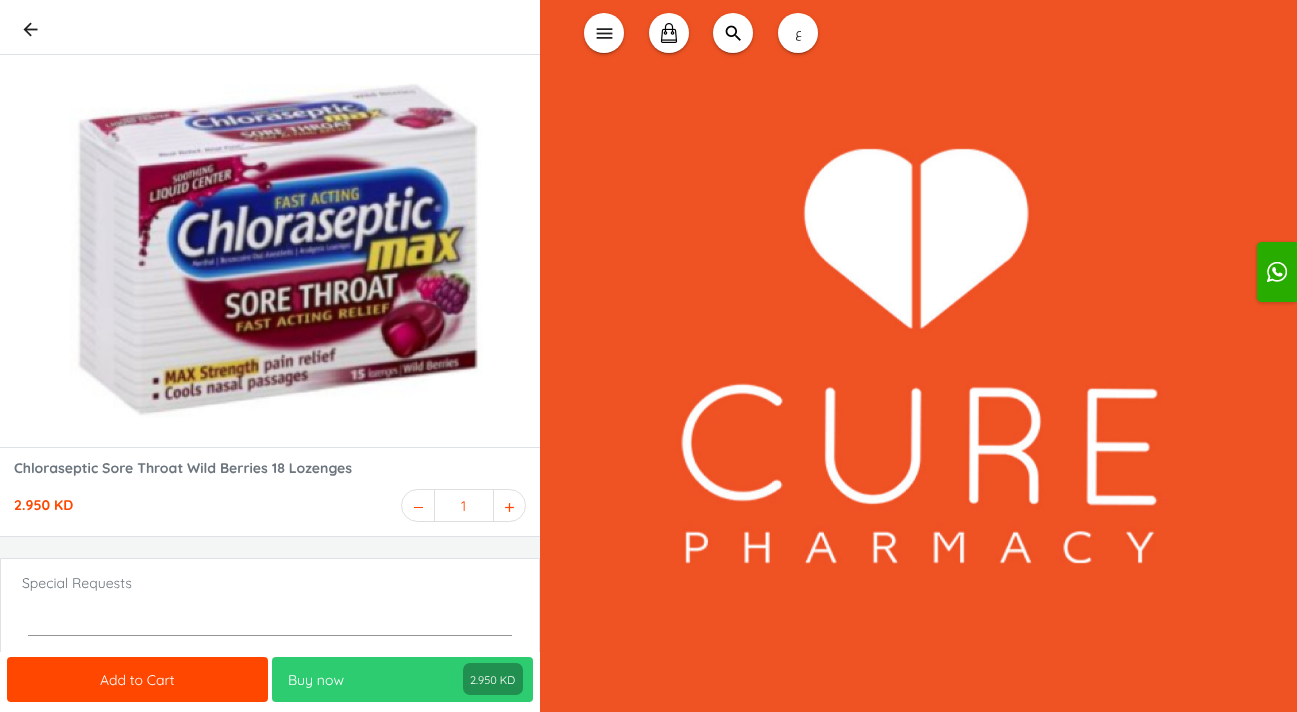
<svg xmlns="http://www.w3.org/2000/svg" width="1297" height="712">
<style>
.a{font:12px Cairo;direction:rtl;fill:#212121}
.b{font:300 14px 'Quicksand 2';fill:#6c757d}
.c{font:300 14px 'Quicksand 2';fill:#ff4700}
.d{font:300 14px Quicksand;fill:#ff4700}
.e{font:300 14px Quicksand;fill:#6c757d}
.f{font:300 14px Quicksand;fill:#fff}
.g{font:300 11px Quicksand;fill:#fff}
</style>
<rect width="100%" height="100%" fill="#f4f5f5"/>
<image href="1.png" x="540" y="0" width="757" height="712"/>
<rect fill="#0000001f" filter="blur(2.5px)" x="584" y="14" width="40" height="40" rx="20"/>
<rect fill="#00000024" filter="blur(1px)" x="584" y="15" width="40" height="40" rx="20"/>
<rect fill="#00000033" filter="blur(0.5px)" x="586" y="18" width="36" height="36" rx="18"/>
<circle fill="#fff" cx="604" cy="33" r="20"/>
<image href="2.png" x="596" y="28" width="17" height="11"/>
<rect fill="#0000001f" filter="blur(2.5px)" x="649" y="14" width="40" height="40" rx="20"/>
<rect fill="#00000024" filter="blur(1px)" x="649" y="15" width="40" height="40" rx="20"/>
<rect fill="#00000033" filter="blur(0.5px)" x="651" y="18" width="36" height="36" rx="18"/>
<circle fill="#fff" cx="669" cy="33" r="20"/>
<image href="3.png" x="660" y="23" width="18" height="20"/>
<rect fill="#0000001f" filter="blur(2.5px)" x="713" y="14" width="40" height="40" rx="20"/>
<rect fill="#00000024" filter="blur(1px)" x="713" y="15" width="40" height="40" rx="20"/>
<rect fill="#00000033" filter="blur(0.5px)" x="715" y="18" width="36" height="36" rx="18"/>
<circle fill="#fff" cx="733" cy="33" r="20"/>
<image href="4.png" x="725" y="25" width="16" height="16"/>
<rect fill="#0000001f" filter="blur(2.5px)" x="778" y="14" width="40" height="40" rx="20"/>
<rect fill="#00000024" filter="blur(1px)" x="778" y="15" width="40" height="40" rx="20"/>
<rect fill="#00000033" filter="blur(0.5px)" x="780" y="18" width="36" height="36" rx="18"/>
<circle fill="#fff" cx="798" cy="33" r="20"/>
<path fill="#fff" d="M0 0h540v54H0z"/>
<path fill="#dee2e6" d="M0 54h540v1H0z"/>
<image href="5.png" x="23" y="22" width="15" height="15"/>
<path fill="#fff" d="M0 55h540v392H0z"/>
<image href="6.png" x="70" y="83" width="413" height="335"/>
<path fill="#fff" d="M0 448h540v88H0z"/>
<path fill="#dee2e6" d="M0 447h540v1H0z"/>
<path fill="#dee2e6" d="M0 536h540v1H0z"/>
<rect fill="none" stroke="#dedede" x="401.5" y="489.5" width="124" height="32" rx="16"/>
<path fill="#ff4700" d="M414 507h9v1H414z"/>
<path fill="#dedede" d="M493 490h1v32H493z"/>
<path fill="#dedede" d="M434 490h1v32H434z"/>
<image href="7.png" x="505" y="503" width="9" height="9"/>
<path fill="#fff" d="M1 559h538v93H1z"/>
<path fill="none" stroke="#dee2e6" d="M0.5 558.5h539v95H0.5z"/>
<path fill="#949494" d="M28 635h484v1H28z"/>
<path fill="#fff" d="M0 652h540v60H0z"/>
<rect fill="#ff4700" x="7" y="657" width="261" height="45" rx="4"/>
<rect fill="#2ecc71" x="272" y="657" width="261" height="45" rx="4"/>
<rect fill="#208f4f" x="463" y="663" width="60" height="32" rx="7"/>
<rect fill="#00000026" filter="blur(1.5px)" x="1256" y="242" width="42" height="62" rx="6"/>
<path fill="#29ac00" d="M1262 242h35v60h-35c-3 0-5-2-5-5v-50c0-3 2-5 5-5z"/>
<image href="8.png" x="1257" y="243" width="31" height="58"/>
<text class="a" x="802" y="37">ع</text>
<text class="b" x="14" y="473">Chloraseptic Sore Throat Wild Berries 18 Lozenges</text>
<text class="c" x="14" y="510">2.950 KD</text>
<text class="d" x="461" y="511">1</text>
<text class="e" x="22" y="588">Special Requests</text>
<text class="f" x="100" y="685">Add to Cart</text>
<text class="f" x="288" y="685">Buy now</text>
<text class="g" x="470" y="684">2.950 KD</text>
</svg>
